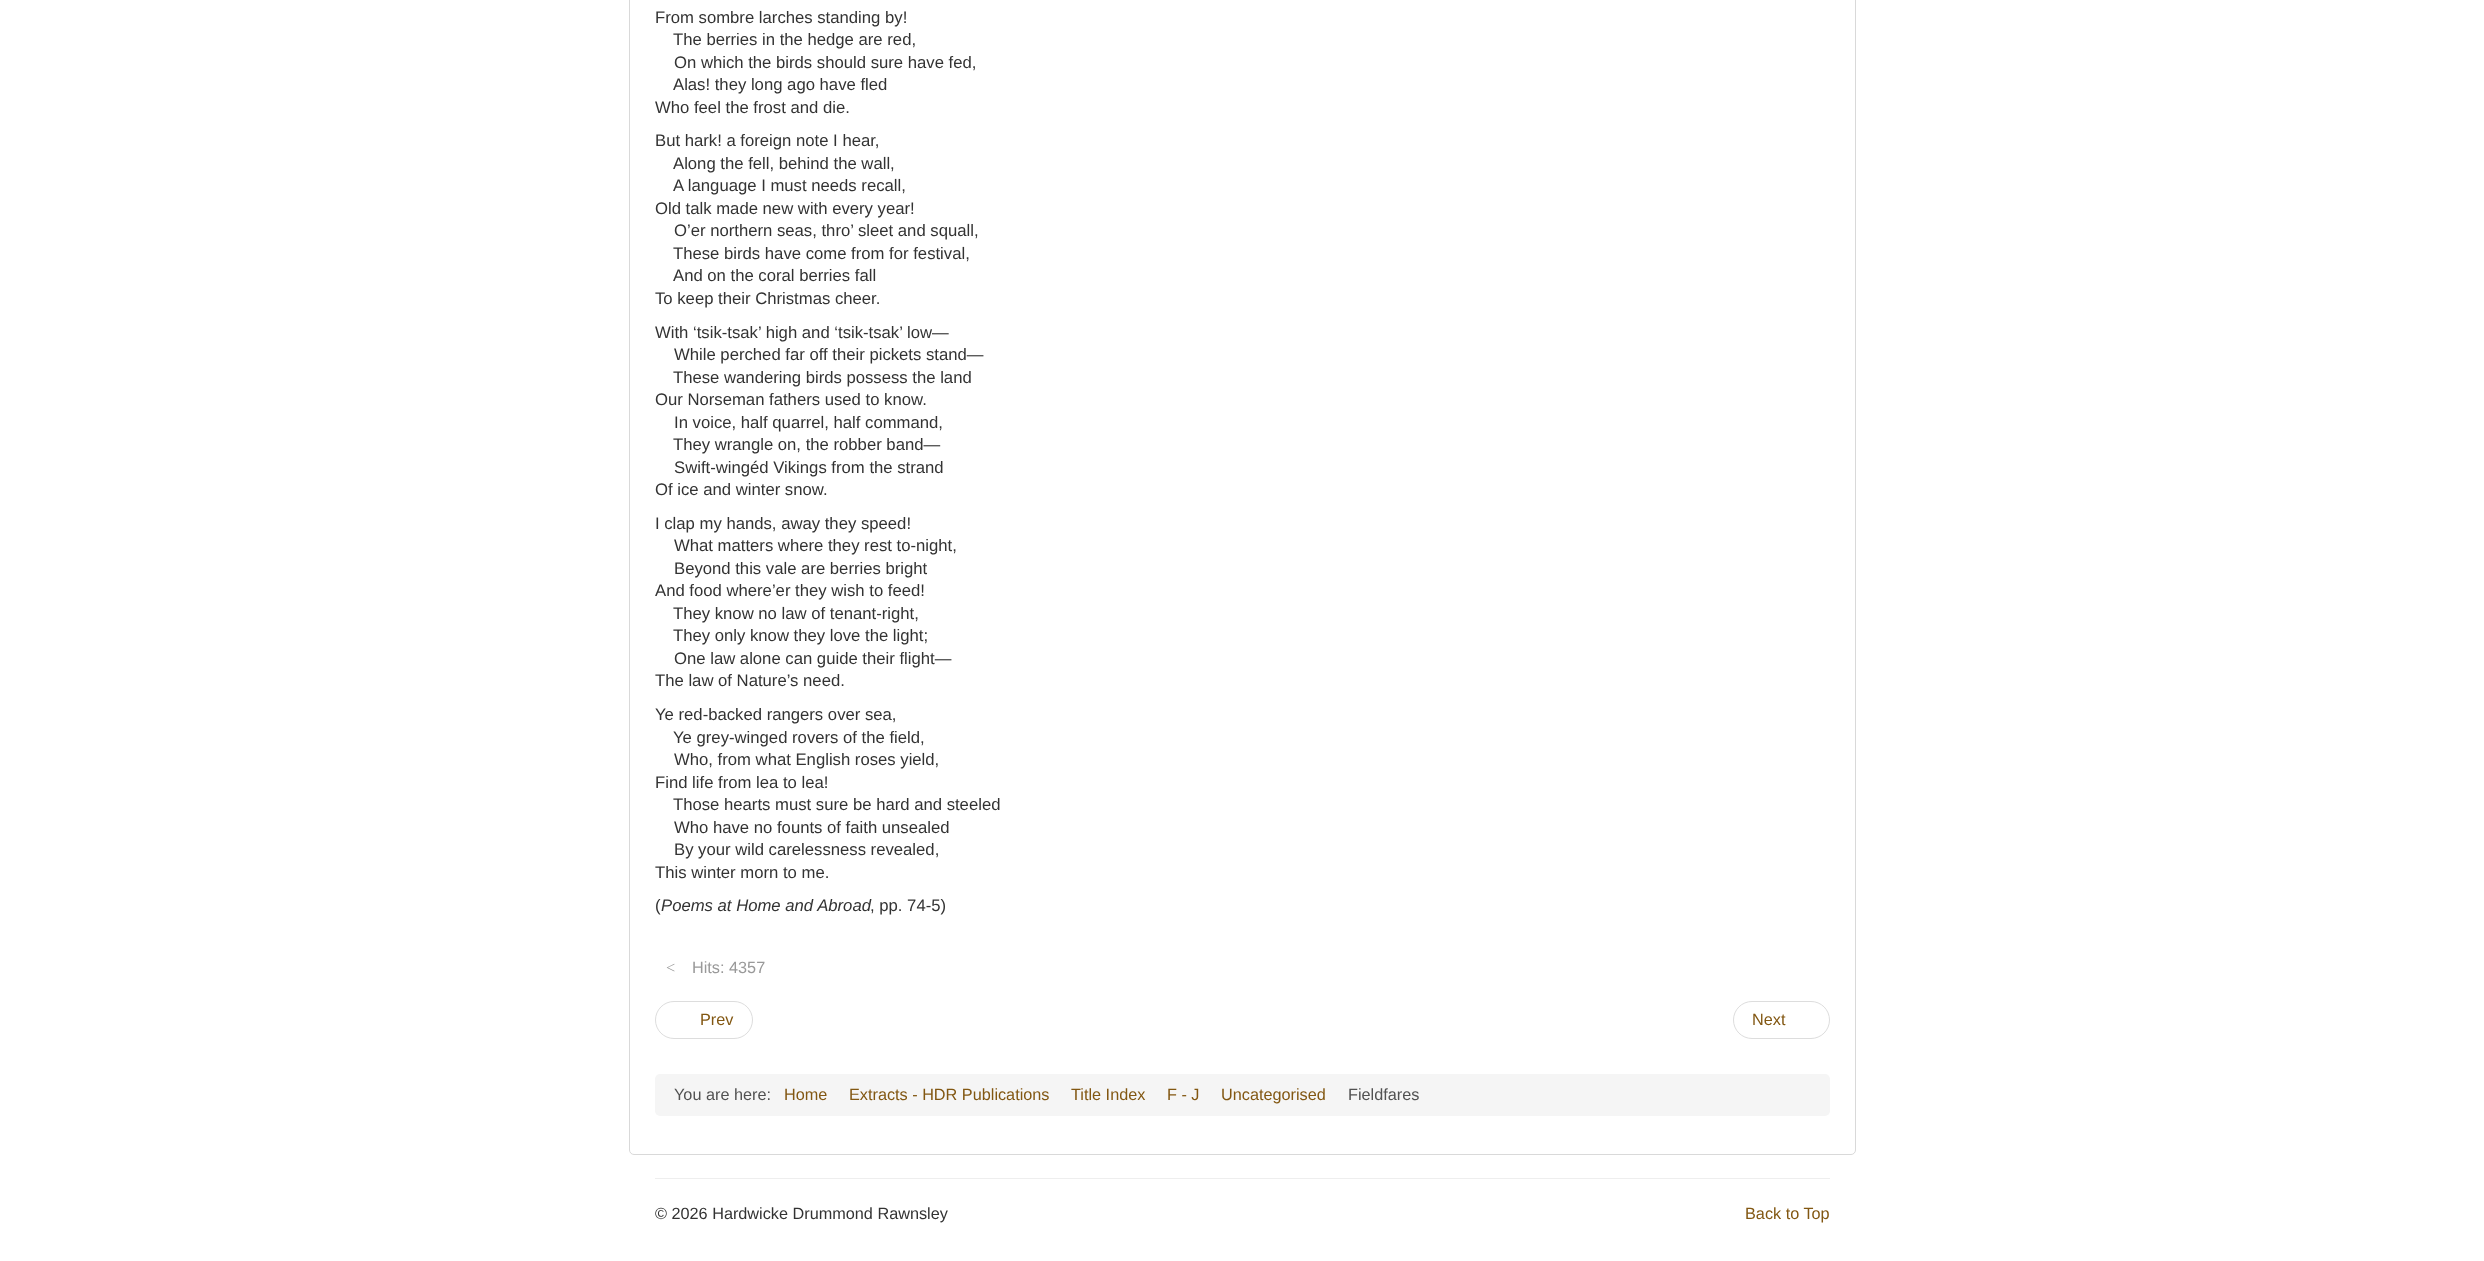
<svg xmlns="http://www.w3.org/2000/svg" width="2484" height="1261">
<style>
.a{font:16.7px Liberation Sans;fill:#333}
.b{font:italic 16.7px Liberation Sans;fill:#333}
.c{font:16.25px Liberation Serif;fill:#999}
.d{font:16.25px Liberation Sans;fill:#999}
.e{font:16.25px Liberation Sans;fill:#825712}
.f{font:16.25px Liberation Sans;fill:#515151}
.g{font:16.25px Liberation Sans;fill:#333}
</style>
<rect width="100%" height="100%" fill="#fff"/>
<rect fill="none" stroke="#d9d9d9" x="629.5" y="-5.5" width="1226" height="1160" rx="4.5"/>
<rect fill="none" stroke="#ddd" x="655.5" y="1001.5" width="97" height="37" rx="18.5"/>
<rect fill="none" stroke="#ddd" x="1733.5" y="1001.5" width="96" height="37" rx="18.5"/>
<rect fill="#f5f5f5" x="655" y="1074" width="1175" height="42" rx="5"/>
<path fill="#eee" d="M655 1178h1175v1H655z"/>
<text class="a" x="655" y="23">From sombre larches standing by!</text>
<text class="a" x="673" y="45">The berries in the hedge are red,</text>
<text class="a" x="674" y="68">On which the birds should sure have fed,</text>
<text class="a" x="673" y="90">Alas! they long ago have fled</text>
<text class="a" x="655" y="113">Who feel the frost and die.</text>
<text class="a" x="655" y="146">But hark! a foreign note I hear,</text>
<text class="a" x="673" y="169">Along the fell, behind the wall,</text>
<text class="a" x="673" y="191">A language I must needs recall,</text>
<text class="a" x="655" y="214">Old talk made new with every year!</text>
<text class="a" x="674" y="236">O’er northern seas, thro’ sleet and squall,</text>
<text class="a" x="673" y="259">These birds have come from for festival,</text>
<text class="a" x="673" y="281">And on the coral berries fall</text>
<text class="a" x="655" y="304">To keep their Christmas cheer.</text>
<text class="a" x="655" y="338">With ‘tsik-tsak’ high and ‘tsik-tsak’ low—</text>
<text class="a" x="674" y="360">While perched far off their pickets stand—</text>
<text class="a" x="673" y="383">These wandering birds possess the land</text>
<text class="a" x="655" y="405">Our Norseman fathers used to know.</text>
<text class="a" x="674" y="428">In voice, half quarrel, half command,</text>
<text class="a" x="673" y="450">They wrangle on, the robber band—</text>
<text class="a" x="674" y="473">Swift-wingéd Vikings from the strand</text>
<text class="a" x="655" y="495">Of ice and winter snow.</text>
<text class="a" x="655" y="529">I clap my hands, away they speed!</text>
<text class="a" x="674" y="551">What matters where they rest to-night,</text>
<text class="a" x="674" y="574">Beyond this vale are berries bright</text>
<text class="a" x="655" y="596">And food where’er they wish to feed!</text>
<text class="a" x="673" y="619">They know no law of tenant-right,</text>
<text class="a" x="673" y="641">They only know they love the light;</text>
<text class="a" x="674" y="664">One law alone can guide their flight—</text>
<text class="a" x="655" y="686">The law of Nature’s need.</text>
<text class="a" x="655" y="720">Ye red-backed rangers over sea,</text>
<text class="a" x="673" y="743">Ye grey-winged rovers of the field,</text>
<text class="a" x="674" y="765">Who, from what English roses yield,</text>
<text class="a" x="655" y="788">Find life from lea to lea!</text>
<text class="a" x="673" y="810">Those hearts must sure be hard and steeled</text>
<text class="a" x="674" y="833">Who have no founts of faith unsealed</text>
<text class="a" x="674" y="855">By your wild carelessness revealed,</text>
<text class="a" x="655" y="878">This winter morn to me.</text>
<text class="a" x="655" y="911">(</text>
<text class="b" x="661" y="911">Poems at Home and Abroad</text>
<text class="a" x="870" y="911">, pp. 74-5)</text>
<text class="c" x="666" y="973">&lt;</text>
<text class="d" x="692" y="973">Hits: 4357</text>
<text class="e" x="700" y="1025">Prev</text>
<text class="e" x="1752" y="1025">Next</text>
<text class="f" x="674" y="1100">You are here:</text>
<text class="e" x="784" y="1100">Home</text>
<text class="e" x="849" y="1100">Extracts - HDR Publications</text>
<text class="e" x="1071" y="1100">Title Index</text>
<text class="e" x="1167" y="1100">F - J</text>
<text class="e" x="1221" y="1100">Uncategorised</text>
<text class="f" x="1348" y="1100">Fieldfares</text>
<text class="g" x="655" y="1219">© 2026 Hardwicke Drummond Rawnsley</text>
<text class="e" x="1745" y="1219">Back to Top</text>
</svg>
